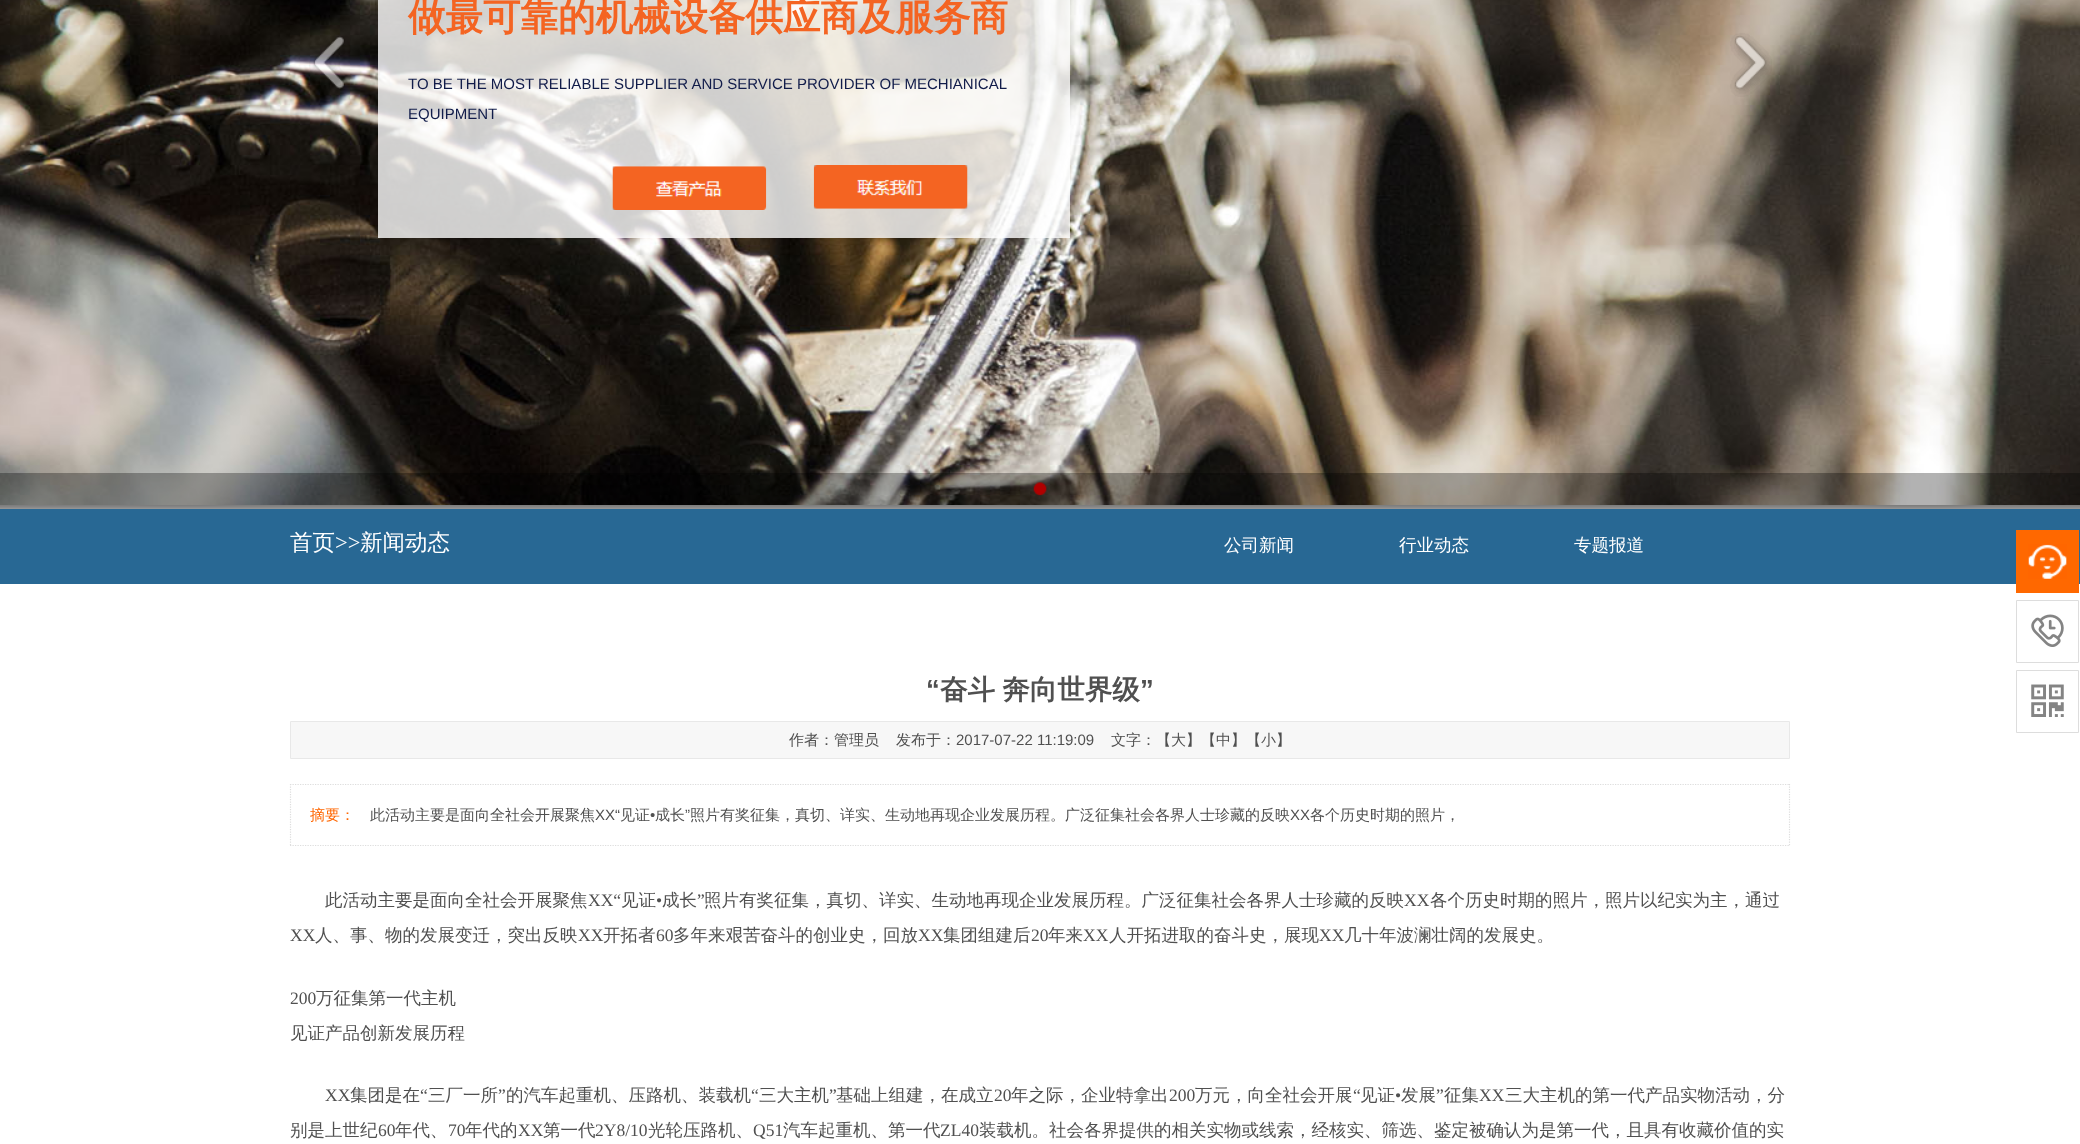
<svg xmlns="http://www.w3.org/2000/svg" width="2080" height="1144">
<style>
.a{font:bold 37.5px WenQuanYi Zen Hei;fill:#f46422}
.b{font:15px Liberation Sans;fill:#111c4a}
.c{font:500 22.5px WenQuanYi Zen Hei;fill:#fff}
.d{font:22.5px Liberation Serif;fill:#fff}
.e{font:500 17.5px WenQuanYi Zen Hei;fill:#fff}
.f{font:bold 27.5px Liberation Sans;fill:#505050}
.g{font:bold 27.5px WenQuanYi Zen Hei;fill:#505050}
.h{font:500 15px WenQuanYi Zen Hei;fill:#505050}
.i{font:15px Liberation Sans;fill:#505050}
.j{font:500 15px WenQuanYi Zen Hei;fill:#f60}
.k{font:500 17.5px WenQuanYi Zen Hei;fill:#505050}
.l{font:17.5px Liberation Serif;fill:#505050}
</style>
<rect width="100%" height="100%" fill="#fff"/>
<image href="1.png" x="0" y="0" width="2080" height="505"/>
<image href="2.png" x="309" y="36" width="42" height="60"/>
<image href="3.png" x="1730" y="33" width="42" height="64"/>
<path fill="#0000004d" d="M0 473h2080v32H0z"/>
<image href="4.png" x="1033" y="482" width="14" height="14"/>
<image href="5.png" x="0" y="505" width="2080" height="4"/>
<path fill="#ffffffcc" d="M378 0h692v238H378z"/>
<image href="6.png" x="612" y="166" width="155" height="44"/>
<image href="7.png" x="813" y="165" width="155" height="44"/>
<path fill="#286894" d="M0 509h2080v75H0z"/>
<path fill="#f7f7f7" stroke="#e8e8e8" d="M290.5 721.5h1499v37H290.5z"/>
<path fill="none" stroke="#ddd" stroke-width="1.2" stroke-dasharray="1.25 1.25" d="M290 784.5h1500"/>
<path fill="none" stroke="#ddd" stroke-width="1.2" stroke-dasharray="1.25 1.25" d="M1789.5 784v62"/>
<path fill="none" stroke="#ddd" stroke-width="1.2" stroke-dasharray="1.25 1.25" d="M290 845.5h1500"/>
<path fill="none" stroke="#ddd" stroke-width="1.2" stroke-dasharray="1.25 1.25" d="M290.5 784v62"/>
<path fill="#ff6800" d="M2016 530h63v63H2016z"/>
<image href="8.png" x="2028" y="544" width="39" height="35"/>
<path fill="none" stroke="#ddd" d="M2016.5 600.5h62v62H2016.5z"/>
<image href="9.png" x="2031" y="614" width="33" height="33"/>
<path fill="none" stroke="#ddd" d="M2016.5 670.5h62v62H2016.5z"/>
<image href="10.png" x="2031" y="684" width="33" height="33"/>
<text class="a" x="408" y="30">做最可靠的机械设备供应商及服务商</text>
<text class="b" x="408" y="89">TO BE THE MOST RELIABLE SUPPLIER AND SERVICE PROVIDER OF MECHIANICAL</text>
<text class="b" x="408" y="119">EQUIPMENT</text>
<text class="c" x="290" y="550">首页</text>
<text class="d" x="335" y="550">&gt;&gt;</text>
<text class="c" x="360" y="550">新闻动态</text>
<text class="e" x="1224" y="551">公司新闻</text>
<text class="e" x="1399" y="551">行业动态</text>
<text class="e" x="1574" y="551">专题报道</text>
<text class="f" x="926" y="699">“</text>
<text class="g" x="940" y="699" word-spacing="-1">奋斗 奔向世界级</text>
<text class="f" x="1140" y="699">”</text>
<text class="h" x="789" y="745">作者：管理员</text>
<text class="h" x="896" y="745">发布于：</text>
<text class="i" x="956" y="745">2017-07-22 11:19:09</text>
<text class="h" x="1111" y="745">文字：【大】【中】【小】</text>
<text class="j" x="310" y="820">摘要：</text>
<text class="h" x="370" y="820">此活动主要是面向全社会开展聚焦</text>
<text class="i" x="595" y="820">XX“</text>
<text class="h" x="620" y="820">见证</text>
<text class="i" x="650" y="820">•</text>
<text class="h" x="655" y="820">成长</text>
<text class="i" x="685" y="820">”</text>
<text class="h" x="690" y="820">照片有奖征集，真切、详实、生动地再现企业发展历程。广泛征集社会各界人士珍藏的反映</text>
<text class="i" x="1290" y="820">XX</text>
<text class="h" x="1310" y="820">各个历史时期的照片，</text>
<text class="k" x="325" y="906">此活动主要是面向全社会开展聚焦</text>
<text class="l" x="588" y="906">XX“</text>
<text class="k" x="621" y="906">见证</text>
<text class="l" x="656" y="906">•</text>
<text class="k" x="662" y="906">成长</text>
<text class="l" x="697" y="906">”</text>
<text class="k" x="704" y="906">照片有奖征集，真切、详实、生动地再现企业发展历程。广泛征集社会各界人士珍藏的反映</text>
<text class="l" x="1404" y="906">XX</text>
<text class="k" x="1430" y="906">各个历史时期的照片，照片以纪实为主，通过</text>
<text class="l" x="290" y="941">XX</text>
<text class="k" x="315" y="941">人、事、物的发展变迁，突出反映</text>
<text class="l" x="578" y="941">XX</text>
<text class="k" x="603" y="941">开拓者</text>
<text class="l" x="656" y="941">60</text>
<text class="k" x="673" y="941">多年来艰苦奋斗的创业史，回放</text>
<text class="l" x="918" y="941">XX</text>
<text class="k" x="943" y="941">集团组建后</text>
<text class="l" x="1031" y="941">20</text>
<text class="k" x="1048" y="941">年来</text>
<text class="l" x="1083" y="941">XX</text>
<text class="k" x="1109" y="941">人开拓进取的奋斗史，展现</text>
<text class="l" x="1319" y="941">XX</text>
<text class="k" x="1344" y="941">几十年波澜壮阔的发展史。</text>
<text class="l" x="290" y="1004">200</text>
<text class="k" x="316" y="1004">万征集第一代主机</text>
<text class="k" x="290" y="1039">见证产品创新发展历程</text>
<text class="l" x="325" y="1101">XX</text>
<text class="k" x="350" y="1101">集团是在</text>
<text class="l" x="420" y="1101">“</text>
<text class="k" x="428" y="1101">三厂一所</text>
<text class="l" x="498" y="1101">”</text>
<text class="k" x="506" y="1101">的汽车起重机、压路机、装载机</text>
<text class="l" x="751" y="1101">“</text>
<text class="k" x="759" y="1101">三大主机</text>
<text class="l" x="829" y="1101">”</text>
<text class="k" x="836" y="1101">基础上组建，在成立</text>
<text class="l" x="994" y="1101">20</text>
<text class="k" x="1011" y="1101">年之际，企业特拿出</text>
<text class="l" x="1169" y="1101">200</text>
<text class="k" x="1195" y="1101">万元，向全社会开展</text>
<text class="l" x="1353" y="1101">“</text>
<text class="k" x="1360" y="1101">见证</text>
<text class="l" x="1395" y="1101">•</text>
<text class="k" x="1401" y="1101">发展</text>
<text class="l" x="1436" y="1101">”</text>
<text class="k" x="1444" y="1101">征集</text>
<text class="l" x="1479" y="1101">XX</text>
<text class="k" x="1505" y="1101">三大主机的第一代产品实物活动，分</text>
<text class="k" x="290" y="1136">别是上世纪</text>
<text class="l" x="378" y="1136">60</text>
<text class="k" x="395" y="1136">年代、</text>
<text class="l" x="448" y="1136">70</text>
<text class="k" x="465" y="1136">年代的</text>
<text class="l" x="518" y="1136">XX</text>
<text class="k" x="543" y="1136">第一代</text>
<text class="l" x="595" y="1136">2Y8/10</text>
<text class="k" x="648" y="1136">光轮压路机、</text>
<text class="l" x="753" y="1136">Q51</text>
<text class="k" x="783" y="1136">汽车起重机、第一代</text>
<text class="l" x="940" y="1136">ZL40</text>
<text class="k" x="979" y="1136">装载机。社会各界提供的相关实物或线索，经核实、筛选、鉴定被确认为是第一代，且具有收藏价值的实</text>
</svg>
